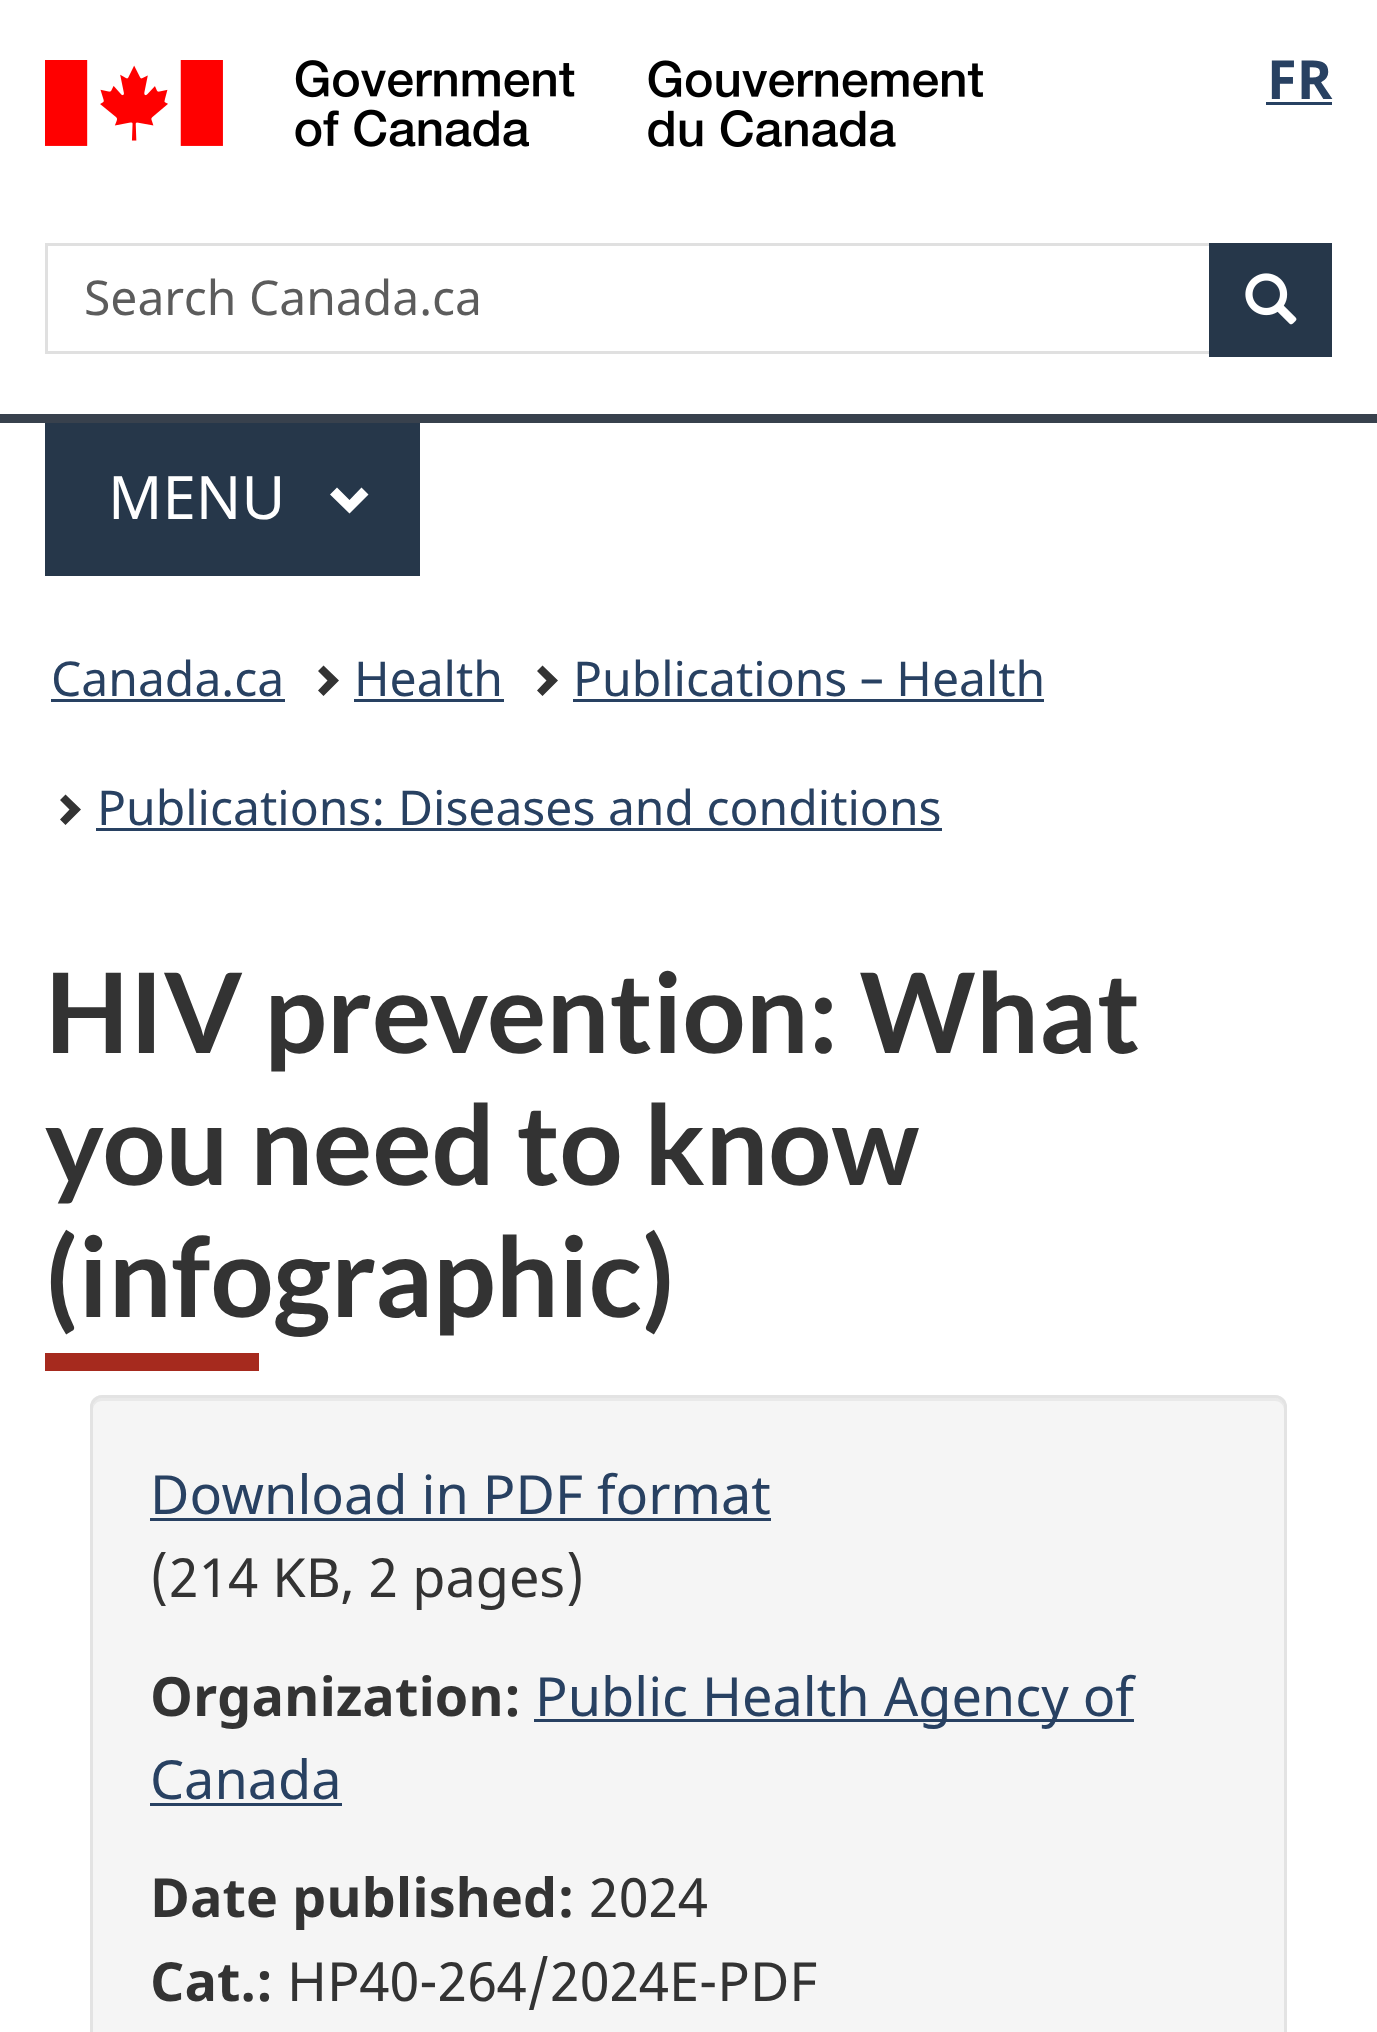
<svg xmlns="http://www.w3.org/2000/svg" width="1377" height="2032">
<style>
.a{font:bold 54px Noto Sans;fill:#284162}
.b{font:48px Noto Sans;fill:#5c5c5c}
.c{font:60px Noto Sans;fill:#fff}
.d{font:48px Noto Sans;fill:#284162}
.e{font:bold 111px Lato;fill:#333}
.f{font:54px Noto Sans;fill:#284162}
.g{font:54px Noto Sans;fill:#333}
.h{font:bold 54px Noto Sans;fill:#333}
</style>
<rect width="100%" height="100%" fill="#fff"/>
<image href="1.png" x="45" y="60" width="938" height="87"/>
<path fill="#284162" d="M1266 102h66v3H1266z"/>
<path fill="none" stroke="#e0e0e0" stroke-width="3" d="M46.5 244.5h1284v108H46.5z"/>
<path fill="#26374a" d="M1209 243h123v114H1209z"/>
<image href="2.png" x="1245" y="273" width="52" height="52"/>
<path fill="#38414d" d="M0 414h1377v9H0z"/>
<path fill="#26374a" d="M45 423h375v153H45z"/>
<path fill="#fff" d="M368.5 494.5l-19 19l-19.5-19l7-7l12.5 12.5l12-12.5z"/>
<path fill="#284162" d="M51 699h234v3H51z"/>
<path fill="#333" d="M339 680.5l-15.5 15.5l-5.5-5.5l9.5-10l-9.5-9.5l5.5-5.5z"/>
<path fill="#284162" d="M354 699h150v3H354z"/>
<path fill="#333" d="M558 680.5l-15.5 15.5l-5.5-5.5l9.5-10l-9.5-9.5l5.5-5.5z"/>
<path fill="#284162" d="M573 699h471v3H573z"/>
<path fill="#333" d="M81 809.5l-15.5 15.5l-5.5-5.5l9.5-10l-9.5-9.5l5.5-5.5z"/>
<path fill="#284162" d="M96 828h846v3H96z"/>
<path fill="#a62a1e" d="M45 1353h214v18H45z"/>
<rect fill="#f5f5f5" x="90" y="1395" width="1197" height="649" rx="12"/>
<path fill="#e9e9e9" d="M102 1401h1173c5 0 9 4 9 9v-3c0-5-4-9-9-9h-1173c-5 0-9 4-9 9v3c0-5 4-9 9-9z"/>
<rect fill="none" stroke="#e3e3e3" stroke-width="3" x="91.5" y="1396.5" width="1194" height="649" rx="10.5"/>
<path fill="#284162" d="M150 1518h621v3H150z"/>
<path fill="#284162" d="M534 1719h600v3H534z"/>
<path fill="#284162" d="M150 1803h192v3H150z"/>
<text class="a" x="1267" y="99">FR</text>
<text class="b" x="84" y="315">Search Canada.ca</text>
<text class="c" x="108" y="519">MENU</text>
<text class="d" x="51" y="696">Canada.ca</text>
<text class="d" x="354" y="696">Health</text>
<text class="d" x="573" y="696">Publications – Health</text>
<text class="d" x="97" y="825">Publications: Diseases and conditions</text>
<text class="e" x="45" y="1053">HIV prevention: What</text>
<text class="e" x="45" y="1185">you need to know</text>
<text class="e" x="45" y="1317">(infographic)</text>
<text class="f" x="150" y="1514">Download in PDF format</text>
<text class="g" x="150" y="1597">(214 KB, 2 pages)</text>
<text class="h" x="150" y="1716">Organization:</text>
<text class="f" x="535" y="1716">Public Health Agency of</text>
<text class="f" x="150" y="1799">Canada</text>
<text class="h" x="150" y="1917">Date published:</text>
<text class="g" x="589" y="1917">2024</text>
<text class="h" x="150" y="2001">Cat.:</text>
<text class="g" x="287" y="2001">HP40-264/2024E-PDF</text>
</svg>
